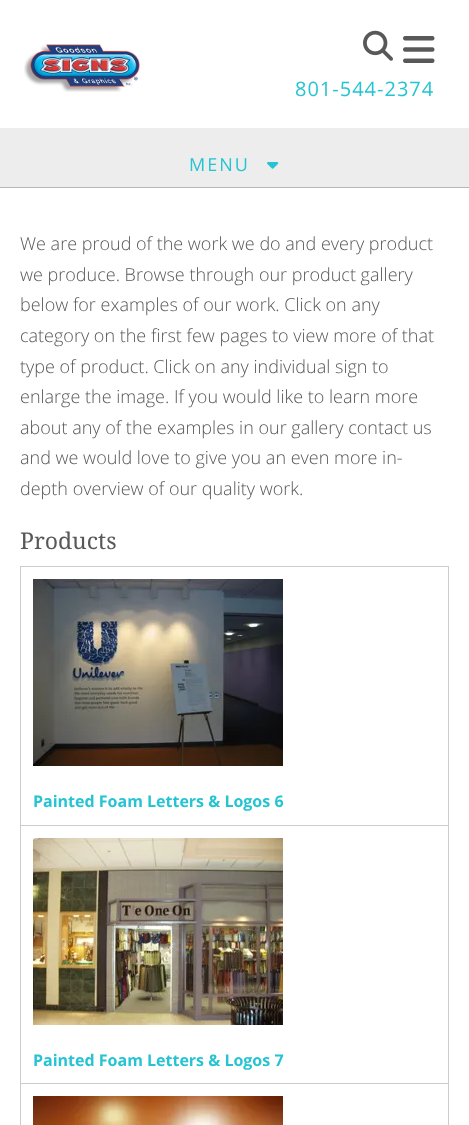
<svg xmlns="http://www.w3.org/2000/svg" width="469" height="1125">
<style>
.a{font:20px Open Sans;letter-spacing:1px;fill:#26c4d2}
.b{font:18px Open Sans;letter-spacing:2px;fill:#26c4d2}
.c{font:300 18px Open Sans;fill:#585858}
.d{font:23px Noto Serif;fill:#585858}
.e{font:bold 16px Open Sans;fill:#26c4d2}
</style>
<rect width="100%" height="100%" fill="#fff"/>
<image href="1.png" x="24" y="44" width="116" height="48"/>
<image href="2.png" x="363" y="30" width="30" height="31"/>
<image href="3.png" x="403" y="36" width="32" height="27"/>
<path fill="#ededed" d="M0 128h469v59H0z"/>
<path fill="#b6b6b6" d="M0 187h469v1H0z"/>
<image href="4.png" x="267" y="162" width="12" height="7"/>
<path fill="#ccc" d="M20 566h1v559H20z"/>
<path fill="#ccc" d="M21 566h428v1H21z"/>
<path fill="#ccc" d="M448 566h1v559H448z"/>
<path fill="#ccc" d="M21 825h428v1H21z"/>
<image href="5.png" x="33" y="579" width="250" height="187"/>
<path fill="#ccc" d="M21 1083h428v1H21z"/>
<image href="6.png" x="33" y="838" width="250" height="187"/>
<image href="7.png" x="33" y="1096" width="250" height="29"/>
<text class="a" x="295" y="96">801-544-2374</text>
<text class="b" x="189" y="171">MENU</text>
<text class="c" x="20" y="250">We are proud of the work we do and every product</text>
<text class="c" x="20" y="281">we produce. Browse through our product gallery</text>
<text class="c" x="20" y="311">below for examples of our work. Click on any</text>
<text class="c" x="20" y="342">category on the first few pages to view more of that</text>
<text class="c" x="20" y="373">type of product. Click on any individual sign to</text>
<text class="c" x="20" y="403">enlarge the image. If you would like to learn more</text>
<text class="c" x="20" y="434">about any of the examples in our gallery contact us</text>
<text class="c" x="20" y="464">and we would love to give you an even more in-</text>
<text class="c" x="20" y="495">depth overview of our quality work.</text>
<text class="d" x="20" y="549">Products</text>
<text class="e" x="33" y="807">Painted Foam Letters &amp; Logos 6</text>
<text class="e" x="33" y="1066">Painted Foam Letters &amp; Logos 7</text>
</svg>
